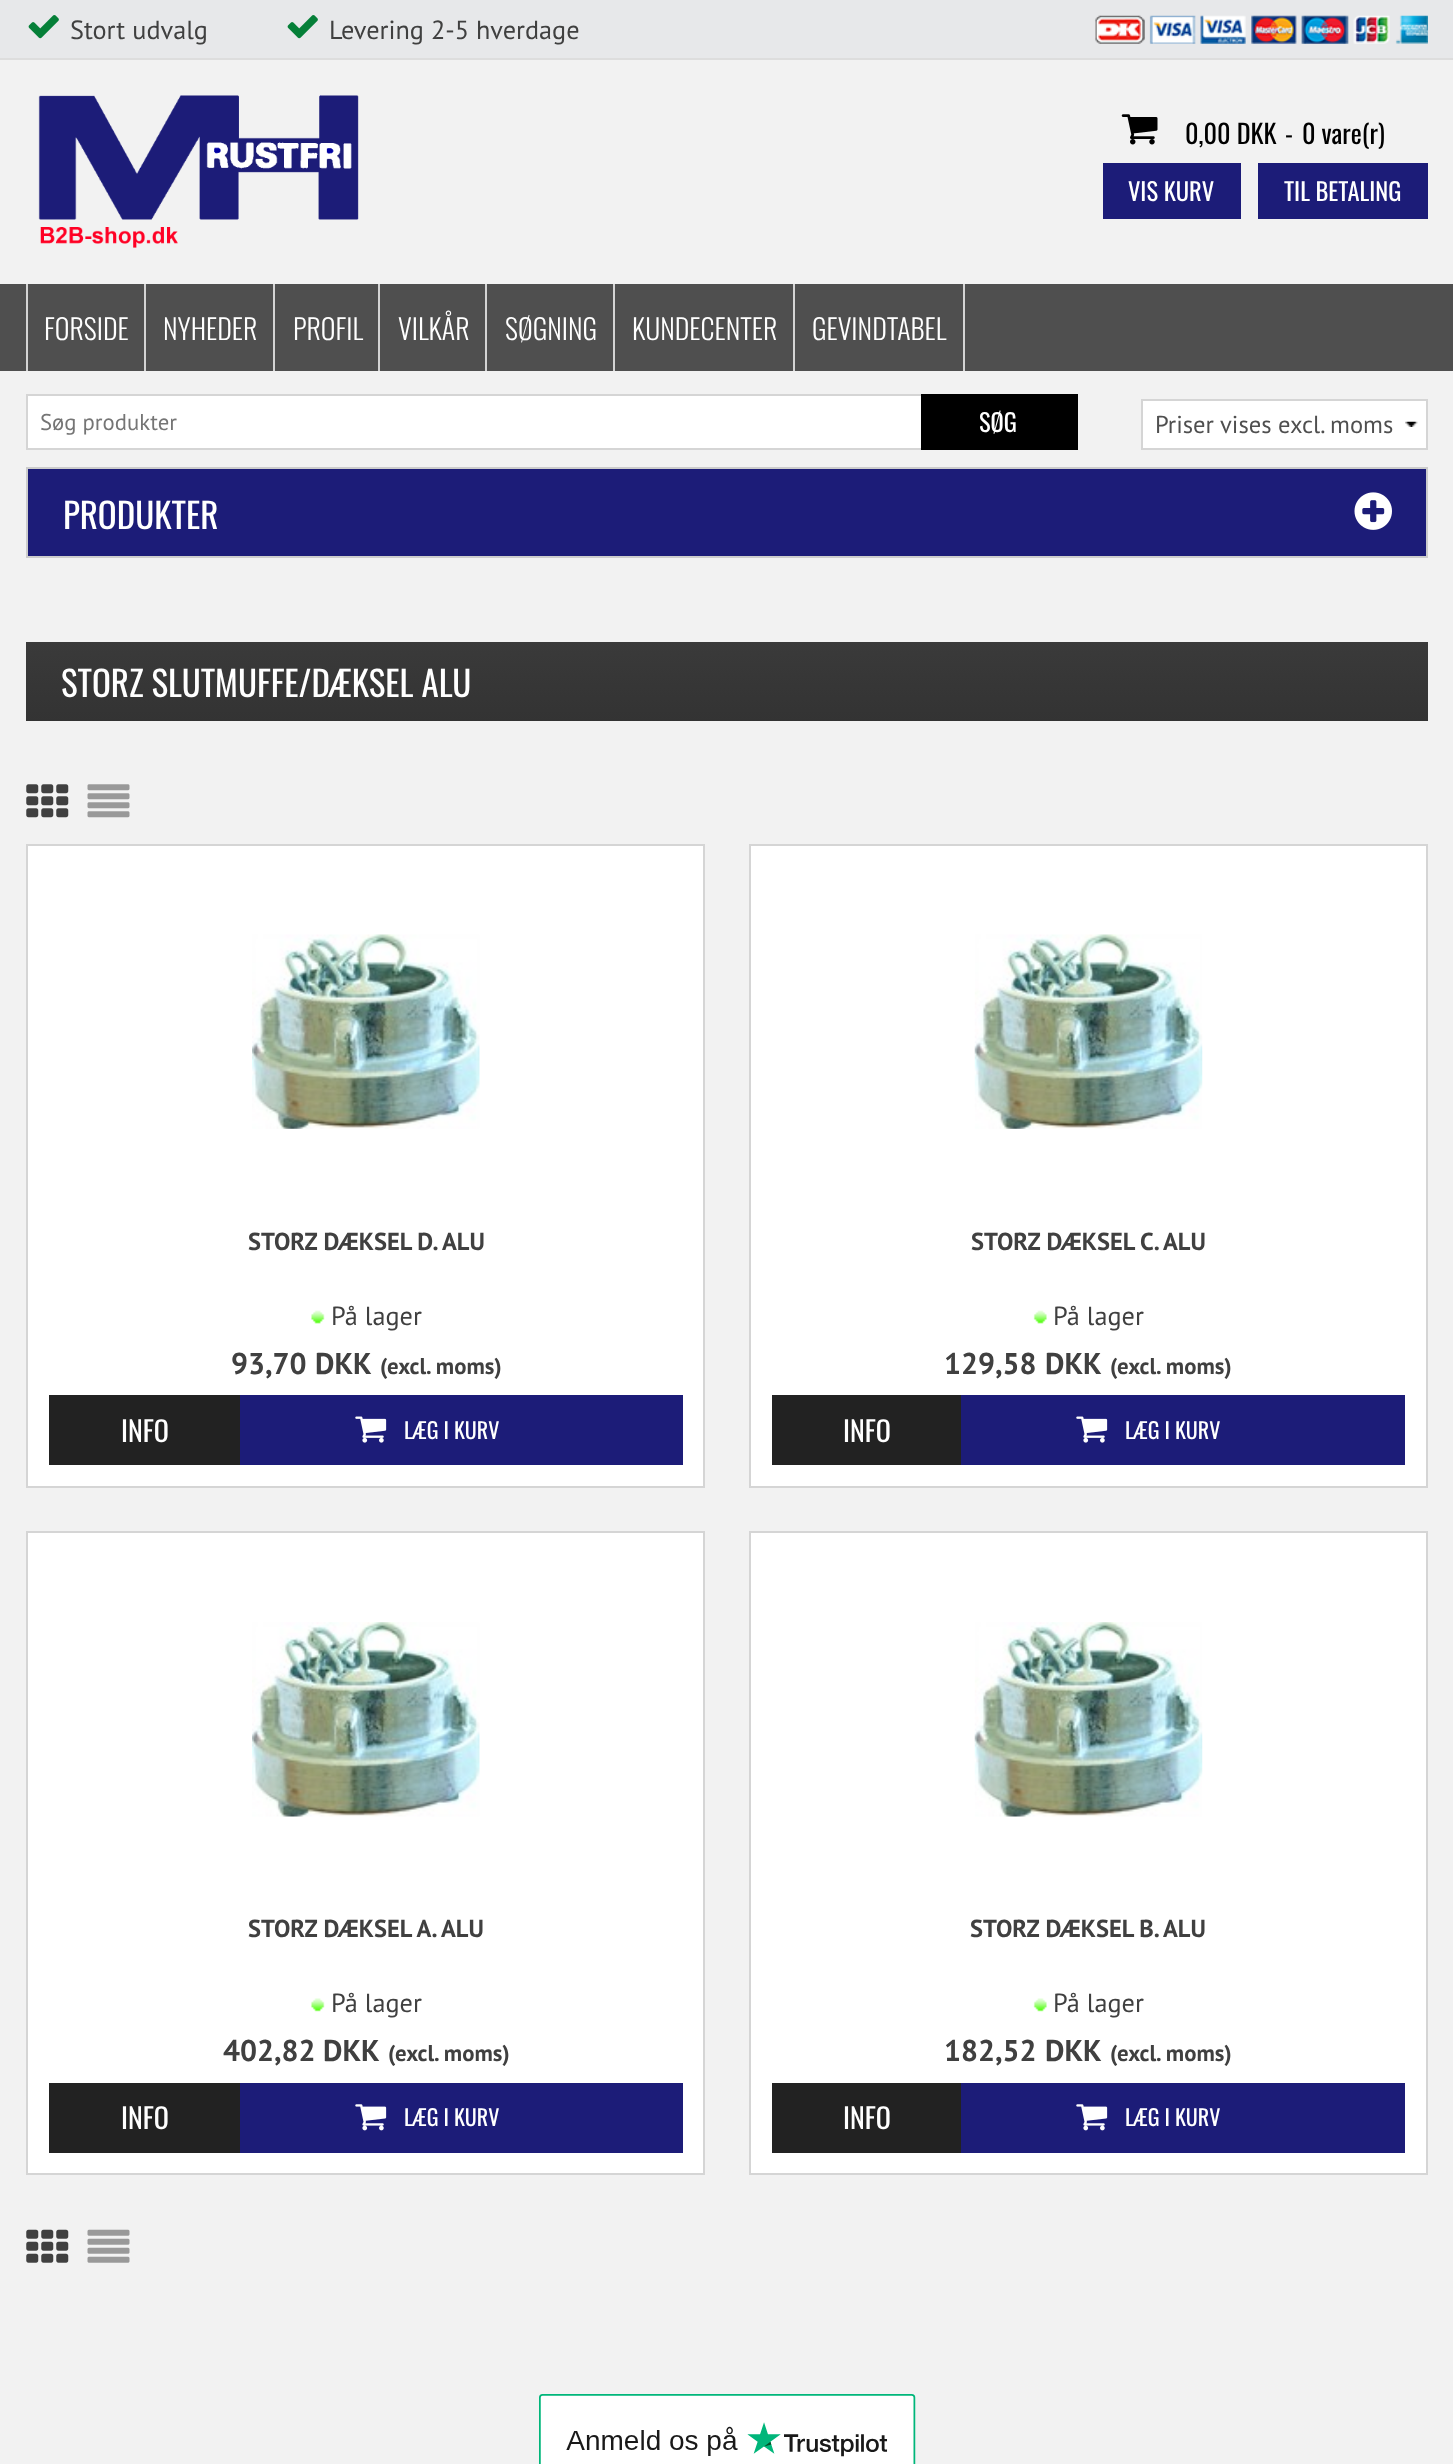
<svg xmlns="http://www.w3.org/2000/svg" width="1453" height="2464">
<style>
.a{font:26.25px PT Sans;fill:#404040}
.b{font:26.25px Oswald;fill:#000}
.c{font:24.5px Oswald;fill:#fff}
.d{font:300 28px Oswald;fill:#fff}
.e{font:22.75px PT Sans;fill:#757575}
.f{font:24.5px PT Sans;fill:#4f4f4f}
.g{font:35px Oswald;fill:#fff}
.h{font:bold 24.5px PT Sans;fill:#404040}
.i{font:bold 30px PT Sans;fill:#404040}
.j{font:bold 22.75px PT Sans;fill:#404040}
.k{font:28px Oswald;fill:#fff}
.l{font:22px Oswald;fill:#fff}
</style>
<defs>
<linearGradient id="g1" gradientUnits="userSpaceOnUse" x1="727" y1="642" x2="727" y2="721"><stop offset="0" stop-color="#3a3a3a"/><stop offset="1" stop-color="#333"/></linearGradient>
</defs>
<rect width="100%" height="100%" fill="#f2f2f2"/>
<path fill="#e7e8ea" d="M0 0h1453v58H0z"/>
<path fill="#ddd" d="M0 58h1453v2H0z"/>
<image href="1.png" x="28" y="15" width="31" height="24"/>
<image href="1.png" x="287" y="15" width="31" height="24"/>
<image href="2.png" x="1095" y="15" width="333" height="29"/>
<image href="3.png" x="38" y="95" width="321" height="153"/>
<image href="4.png" x="1121" y="114" width="37" height="31"/>
<path fill="#1c1c78" d="M1103 163h138v56H1103z"/>
<path fill="#1c1c78" d="M1258 163h170v56H1258z"/>
<path fill="#4f4f4f" d="M0 284h1453v87H0z"/>
<path fill="#d4d4d4" d="M26 284h2v87H26z"/>
<path fill="#d4d4d4" d="M144 284h2v87H144z"/>
<path fill="#d4d4d4" d="M273 284h2v87H273z"/>
<path fill="#d4d4d4" d="M378 284h2v87H378z"/>
<path fill="#d4d4d4" d="M485 284h2v87H485z"/>
<path fill="#d4d4d4" d="M613 284h2v87H613z"/>
<path fill="#d4d4d4" d="M793 284h2v87H793z"/>
<path fill="#d4d4d4" d="M963 284h2v87H963z"/>
<path fill="#fff" d="M28 396h893v52H28z"/>
<path fill="none" stroke="#d5d5d5" stroke-width="2" d="M27 395h1050v54H27z"/>
<path fill="#000" d="M921 394h157v56H921z"/>
<path fill="#fff" d="M1143 401h283v47H1143z"/>
<image href="5.png" x="1405" y="421" width="13" height="6"/>
<path fill="none" stroke="#d5d5d5" stroke-width="2" d="M1142 400h285v49H1142z"/>
<path fill="#1c1c78" stroke="#ccc" stroke-width="2" d="M27 468h1400v89H27z"/>
<image href="6.png" x="1354" y="492" width="38" height="38"/>
<path fill="url(#g1)" d="M26 642h1402v79H26z"/>
<image href="7.png" x="26" y="784" width="43" height="34"/>
<image href="8.png" x="87" y="784" width="43" height="34"/>
<path fill="#fff" stroke="#d5d5d5" stroke-width="2" d="M27 845h677v642H27z"/>
<image href="9.png" x="252" y="934" width="228" height="195"/>
<image href="10.png" x="311" y="1310" width="14" height="14"/>
<path fill="#222" d="M49 1395h191v70H49z"/>
<path fill="#1c1c78" d="M240 1395h443v70H240z"/>
<image href="11.png" x="355" y="1416" width="32" height="27"/>
<path fill="#fff" stroke="#d5d5d5" stroke-width="2" d="M750 845h677v642H750z"/>
<image href="12.png" x="974" y="934" width="229" height="195"/>
<image href="13.png" x="1033" y="1310" width="14" height="14"/>
<path fill="#222" d="M772 1395h189v70H772z"/>
<path fill="#1c1c78" d="M961 1395h444v70H961z"/>
<image href="11.png" x="1076" y="1416" width="32" height="27"/>
<path fill="#fff" stroke="#d5d5d5" stroke-width="2" d="M27 1532h677v642H27z"/>
<image href="14.png" x="252" y="1622" width="228" height="195"/>
<image href="15.png" x="311" y="1998" width="14" height="14"/>
<path fill="#222" d="M49 2083h191v70H49z"/>
<path fill="#1c1c78" d="M240 2083h443v70H240z"/>
<image href="16.png" x="355" y="2104" width="32" height="27"/>
<path fill="#fff" stroke="#d5d5d5" stroke-width="2" d="M750 1532h677v642H750z"/>
<image href="17.png" x="974" y="1622" width="229" height="195"/>
<image href="18.png" x="1033" y="1998" width="14" height="14"/>
<path fill="#222" d="M772 2083h189v70H772z"/>
<path fill="#1c1c78" d="M961 2083h444v70H961z"/>
<image href="16.png" x="1076" y="2104" width="32" height="27"/>
<image href="19.png" x="26" y="2229" width="43" height="34"/>
<image href="20.png" x="87" y="2229" width="43" height="34"/>
<image href="21.png" x="539" y="2394" width="377" height="70"/>
<text class="a" x="70" y="39">Stort udvalg</text>
<text class="a" x="329" y="39">Levering 2-5 hverdage</text>
<text class="b" x="1185" y="144">0,00 DKK</text>
<text class="b" x="1285" y="144">-</text>
<text class="b" x="1302" y="144">0 vare(r)</text>
<text class="c" x="1128" y="201">VIS KURV</text>
<text class="c" x="1284" y="201">TIL BETALING</text>
<text class="d" x="44" y="340">FORSIDE</text>
<text class="d" x="163" y="340">NYHEDER</text>
<text class="d" x="293" y="340">PROFIL</text>
<text class="d" x="398" y="340">VILKÅR</text>
<text class="d" x="505" y="340">SØGNING</text>
<text class="d" x="632" y="340">KUNDECENTER</text>
<text class="d" x="812" y="340">GEVINDTABEL</text>
<text class="e" x="40" y="430">Søg produkter</text>
<text class="c" x="979" y="432">SØG</text>
<text class="f" x="1155" y="433">Priser vises excl. moms</text>
<text class="g" x="63" y="529">PRODUKTER</text>
<text class="g" x="61" y="697">STORZ SLUTMUFFE/DÆKSEL ALU</text>
<text class="h" x="248" y="1250">STORZ DÆKSEL D.</text>
<text class="h" x="442" y="1250">ALU</text>
<text class="a" x="331" y="1325">På lager</text>
<text class="i" x="231" y="1374">93,70</text>
<text class="i" x="315" y="1374">DKK</text>
<text class="j" x="380" y="1374">(excl. moms)</text>
<text class="k" x="121" y="1442">INFO</text>
<text class="l" x="404" y="1439">LÆG I KURV</text>
<text class="h" x="971" y="1250">STORZ DÆKSEL C.</text>
<text class="h" x="1163" y="1250">ALU</text>
<text class="a" x="1053" y="1325">På lager</text>
<text class="i" x="944" y="1374">129,58</text>
<text class="i" x="1045" y="1374">DKK</text>
<text class="j" x="1110" y="1374">(excl. moms)</text>
<text class="k" x="843" y="1442">INFO</text>
<text class="l" x="1125" y="1439">LÆG I KURV</text>
<text class="h" x="248" y="1937">STORZ DÆKSEL A.</text>
<text class="h" x="441" y="1937">ALU</text>
<text class="a" x="331" y="2012">På lager</text>
<text class="i" x="223" y="2061">402,82</text>
<text class="i" x="323" y="2061">DKK</text>
<text class="j" x="388" y="2061">(excl. moms)</text>
<text class="k" x="121" y="2129">INFO</text>
<text class="l" x="404" y="2126">LÆG I KURV</text>
<text class="h" x="970" y="1937">STORZ DÆKSEL B.</text>
<text class="h" x="1163" y="1937">ALU</text>
<text class="a" x="1053" y="2012">På lager</text>
<text class="i" x="944" y="2061">182,52</text>
<text class="i" x="1045" y="2061">DKK</text>
<text class="j" x="1110" y="2061">(excl. moms)</text>
<text class="k" x="843" y="2129">INFO</text>
<text class="l" x="1125" y="2126">LÆG I KURV</text>
</svg>
